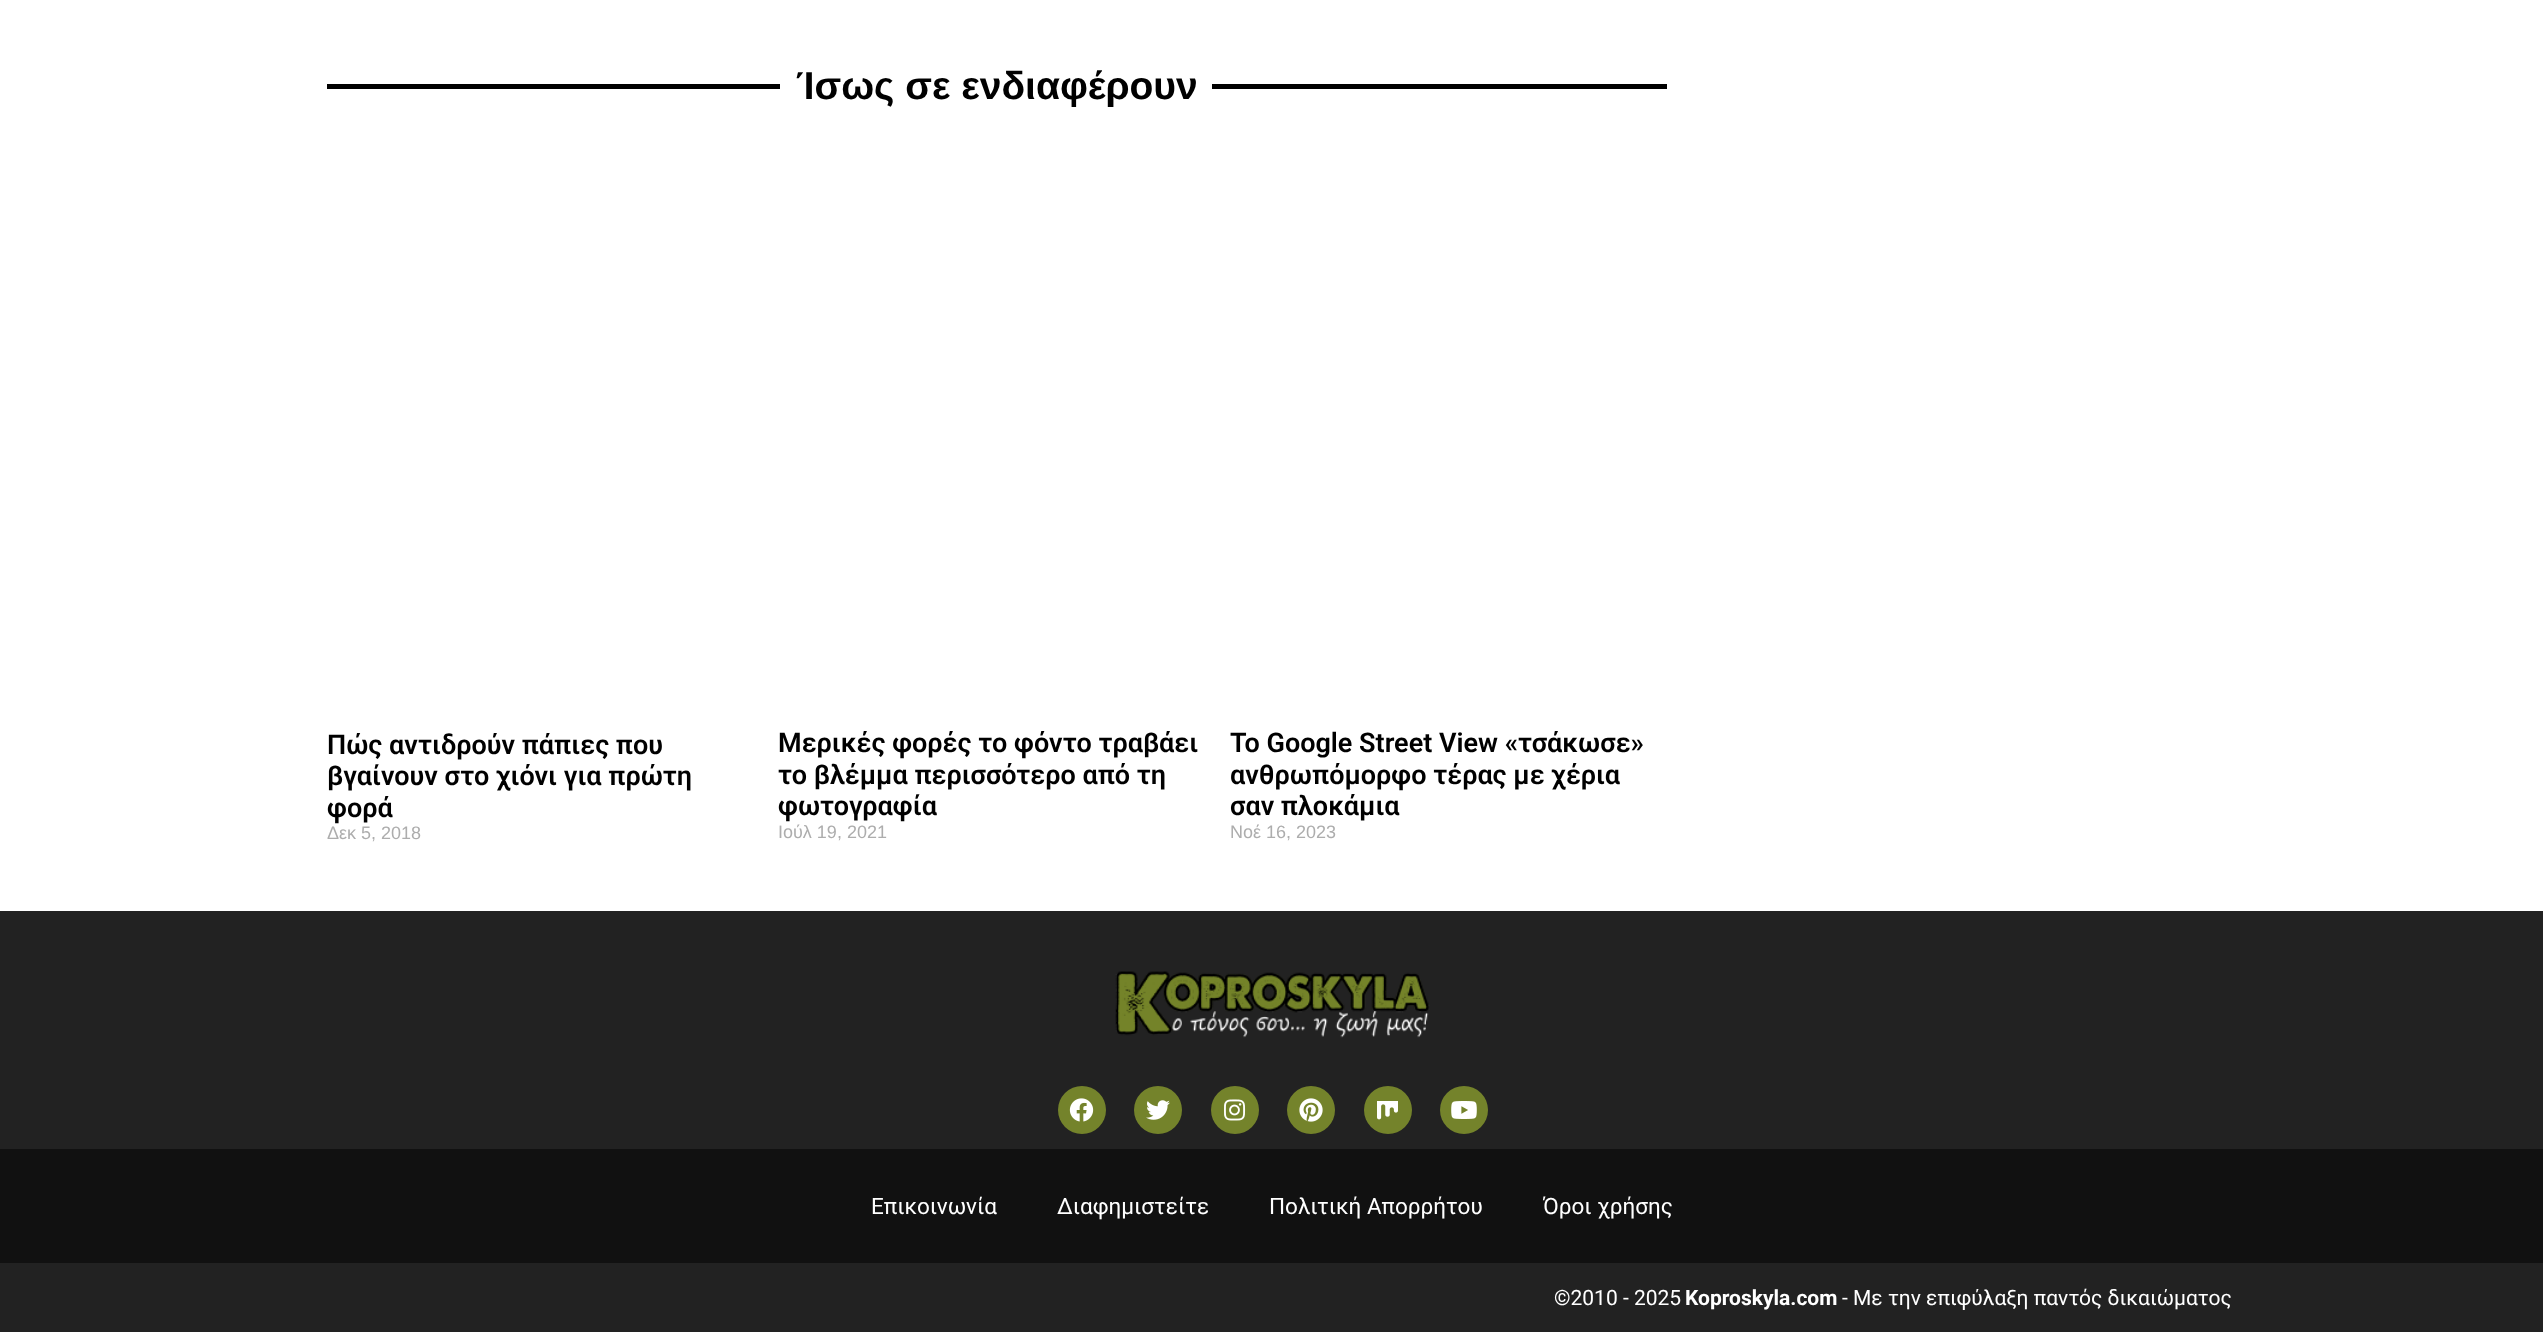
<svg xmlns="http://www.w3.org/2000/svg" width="2543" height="1332">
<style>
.a{font:bold 39px Liberation Sans;fill:#000}
.b{font:600 27px Roboto;fill:#000}
.c{font:18px Liberation Sans;fill:#adadad}
.d{font:22.5px Roboto;fill:#fff}
.e{font:21px Roboto;fill:#fff}
.f{font:bold 21px Roboto;fill:#fff}
</style>
<rect width="100%" height="100%" fill="#fff"/>
<path fill="#000" d="M327 84h453v5H327z"/>
<path fill="#000" d="M1212 84h455v5H1212z"/>
<path fill="#222" d="M0 911h2543v238H0z"/>
<image href="1.png" x="1115" y="971" width="315" height="67"/>
<circle fill="#74832b" cx="1082" cy="1110" r="24"/>
<image href="2.png" x="1069" y="1098" width="25" height="24"/>
<circle fill="#74832b" cx="1158" cy="1110" r="24"/>
<image href="3.png" x="1146" y="1100" width="24" height="20"/>
<circle fill="#74832b" cx="1235" cy="1110" r="24"/>
<image href="4.png" x="1224" y="1099" width="22" height="22"/>
<circle fill="#74832b" cx="1311" cy="1110" r="24"/>
<image href="5.png" x="1299" y="1098" width="24" height="24"/>
<circle fill="#74832b" cx="1388" cy="1110" r="24"/>
<image href="6.png" x="1377" y="1101" width="21" height="19"/>
<circle fill="#74832b" cx="1464" cy="1110" r="24"/>
<image href="7.png" x="1451" y="1101" width="26" height="18"/>
<path fill="#111" d="M0 1149h2543v114H0z"/>
<path fill="#222" d="M0 1263h2543v69H0z"/>
<text class="a" x="796" y="99">Ίσως σε ενδιαφέρουν</text>
<text class="b" x="327" y="754">Πώς αντιδρούν πάπιες που</text>
<text class="b" x="327" y="785">βγαίνουν στο χιόνι για πρώτη</text>
<text class="b" x="327" y="817">φορά</text>
<text class="c" x="327" y="839">Δεκ 5, 2018</text>
<text class="b" x="778" y="752">Μερικές φορές το φόντο τραβάει</text>
<text class="b" x="778" y="784">το βλέμμα περισσότερο από τη</text>
<text class="b" x="778" y="815">φωτογραφία</text>
<text class="c" x="778" y="838">Ιούλ 19, 2021</text>
<text class="b" x="1230" y="752">Το Google Street View «τσάκωσε»</text>
<text class="b" x="1230" y="784">ανθρωπόμορφο τέρας με χέρια</text>
<text class="b" x="1230" y="815">σαν πλοκάμια</text>
<text class="c" x="1230" y="838">Νοέ 16, 2023</text>
<text class="d" x="871" y="1214">Επικοινωνία</text>
<text class="d" x="1057" y="1214">Διαφημιστείτε</text>
<text class="d" x="1269" y="1214">Πολιτική Απορρήτου</text>
<text class="d" x="1543" y="1214">Όροι χρήσης</text>
<text class="e" x="1554" y="1305">©2010 - 2025</text>
<text class="f" x="1685" y="1305">Koproskyla.com</text>
<text class="e" x="1842" y="1305">- Με την επιφύλαξη παντός δικαιώματος</text>
</svg>
